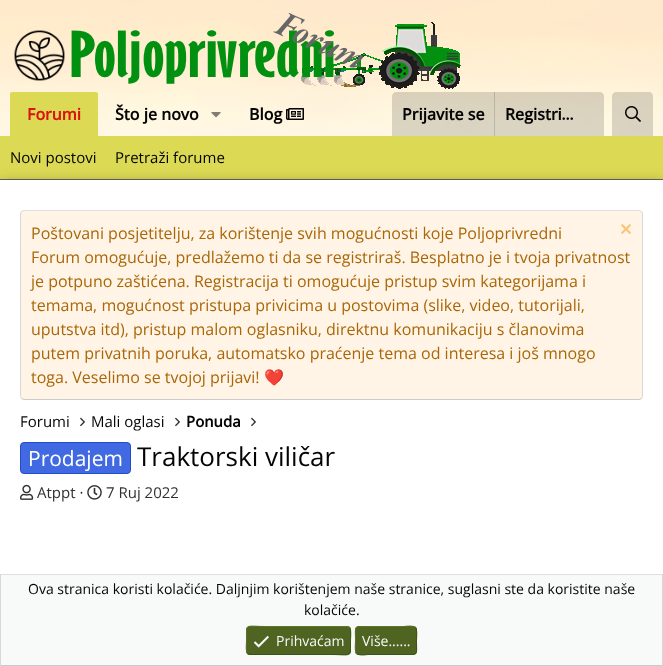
<svg xmlns="http://www.w3.org/2000/svg" width="663" height="666">
<style>
.a{font:bold 16px Open Sans;fill:#dc1111}
.b{font:bold 16px Open Sans;fill:#040404}
.c{font:15px Open Sans;fill:#040404}
.d{font:16px Open Sans;fill:#aa6709}
.e{font:16px Noto Color Emoji;fill:#aa6709}
.f{font:bold 15px Open Sans;fill:#040404}
.g{font:21px Open Sans;fill:#fff}
.h{font:26px Open Sans;fill:#040404}
.i{font:15px Open Sans;fill:#323131}
.j{font:14px Open Sans;fill:#040404}
.k{font:14px Open Sans;fill:#f8f9f9}
</style>
<rect width="100%" height="100%" fill="#fff"/>
<image href="1.png" x="0" y="0" width="663" height="136"/>
<path fill="#ffffffcc" d="M0 0h663v92H0z"/>
<image href="2.png" x="301" y="22" width="160" height="67"/>
<image href="3.png" x="14" y="13" width="349" height="71"/>
<path fill="#ffffffcc" d="M0 92h663v44H0z"/>
<path fill="#dcda54" d="M12 92h84c1 0 2 1 2 2v42h-88v-42c0-1 1-2 2-2z"/>
<image href="4.png" x="211" y="112" width="10" height="6"/>
<image href="5.png" x="286" y="108" width="18" height="12"/>
<path fill="#04040426" d="M396 92h204c2 0 4 2 4 4v40h-212v-40c0-2 2-4 4-4z"/>
<path fill="#04040426" d="M494 92h1v44H494z"/>
<path fill="#04040426" d="M616 92h33c2 0 4 2 4 4v40h-41v-40c0-2 2-4 4-4z"/>
<image href="6.png" x="625" y="106" width="16" height="16"/>
<path fill="#dcda54" d="M0 136h663v43H0z"/>
<path fill="#666" d="M0 179h663v1H0z"/>
<path fill="#00000073" filter="blur(7.5px)" d="M0 185h663v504H0z"/>
<path fill="#fff" d="M0 180h663v394H0z"/>
<rect fill="#fff4e5" x="20" y="210" width="623" height="190" rx="4"/>
<path fill="none" stroke="#dfdfdf" d="M21.5 211.5l2.5-1h615l2.5 1"/>
<path fill="none" stroke="#d8d8d8" d="M641.5 211.5l1 2.5v182.5l-1 2"/>
<path fill="none" stroke="#cbcbcb" d="M641.5 398.5l-2.5 1h-615l-2.5-1"/>
<path fill="none" stroke="#d8d8d8" d="M21.5 398.5l-1-2v-152v-30.5l1-2.5"/>
<image href="7.png" x="621" y="224" width="10" height="10"/>
<image href="8.png" x="80" y="417" width="5" height="10"/>
<image href="8.png" x="175" y="417" width="5" height="10"/>
<image href="8.png" x="251" y="417" width="5" height="10"/>
<rect fill="#4169e1" stroke="#214cce" x="20.5" y="442.5" width="110" height="31" rx="3.5"/>
<image href="9.png" x="20" y="484" width="14" height="16"/>
<image href="10.png" x="87" y="485" width="15" height="15"/>
<path fill="#f8f9f9" d="M1 575h661v90H1z"/>
<path fill="#dfdfdf" d="M0 574h663v1H0z"/>
<path fill="#d8d8d8" d="M662 574h1v92H662z"/>
<path fill="#cbcbcb" d="M0 665h663v1H0z"/>
<path fill="#d8d8d8" d="M0 574h1v92H0z"/>
<rect fill="#4e6420" x="246" y="626" width="105" height="29" rx="4"/>
<path fill="none" stroke="#3f511a" d="M349.5 627.5c2 2 1 10.5 1 13c0 18 1.5 14-19.5 14h-81l-2.5-1"/>
<path fill="none" stroke="#5d7726" d="M247.5 653.5c-2-2-1-10.5-1-13c0-18-1.5-14 19.5-14h81l2.5 1"/>
<image href="11.png" x="253" y="635" width="16" height="13"/>
<rect fill="#4e6420" x="355" y="626" width="62" height="29" rx="4"/>
<path fill="none" stroke="#3f511a" d="M415.5 627.5c2 2 1 10.5 1 13c0 15 2.5 14-12.5 14h-36c-.5 0-9 1.5-11.5-1"/>
<path fill="none" stroke="#5d7726" d="M356.5 653.5c-2-2-1-10.5-1-13c0-15-2.5-14 12.5-14h36c.5 0 9-1.5 11.5 1"/>
<text class="a" x="27" y="120">Forumi</text>
<text class="b" x="115" y="120">Što je novo</text>
<text class="b" x="249" y="120">Blog</text>
<text class="b" x="402" y="120">Prijavite se</text>
<text class="b" x="505" y="120">Registri...</text>
<text class="c" x="10" y="163">Novi postovi</text>
<text class="c" x="115" y="163">Pretraži forume</text>
<text class="d" x="31" y="239">Poštovani posjetitelju, za korištenje svih mogućnosti koje Poljoprivredni</text>
<text class="d" x="31" y="263">Forum omogućuje, predlažemo ti da se registriraš. Besplatno je i tvoja privatnost</text>
<text class="d" x="31" y="287">je potpuno zaštićena. Registracija ti omogućuje pristup svim kategorijama i</text>
<text class="d" x="31" y="311">temama, mogućnost pristupa privicima u postovima (slike, video, tutorijali,</text>
<text class="d" x="31" y="335">uputstva itd), pristup malom oglasniku, direktnu komunikaciju s članovima</text>
<text class="d" x="31" y="359">putem privatnih poruka, automatsko praćenje tema od interesa i još mnogo</text>
<text class="d" x="31" y="383">toga. Veselimo se tvojoj prijavi!</text>
<text class="e" x="264" y="383">❤️</text>
<text class="c" x="20" y="427">Forumi</text>
<text class="c" x="91" y="427">Mali oglasi</text>
<text class="f" x="186" y="427">Ponuda</text>
<text class="g" x="28" y="466">Prodajem</text>
<text class="h" x="137" y="466">Traktorski viličar</text>
<text class="i" x="37" y="498">Atppt ·</text>
<text class="i" x="106" y="498">7 Ruj 2022</text>
<text class="j" x="28" y="594">Ova stranica koristi kolačiće. Daljnjim korištenjem naše stranice, suglasni ste da koristite naše</text>
<text class="j" x="304" y="615">kolačiće.</text>
<text class="k" x="276" y="646">Prihvaćam</text>
<text class="k" x="362" y="646">Više......</text>
</svg>
